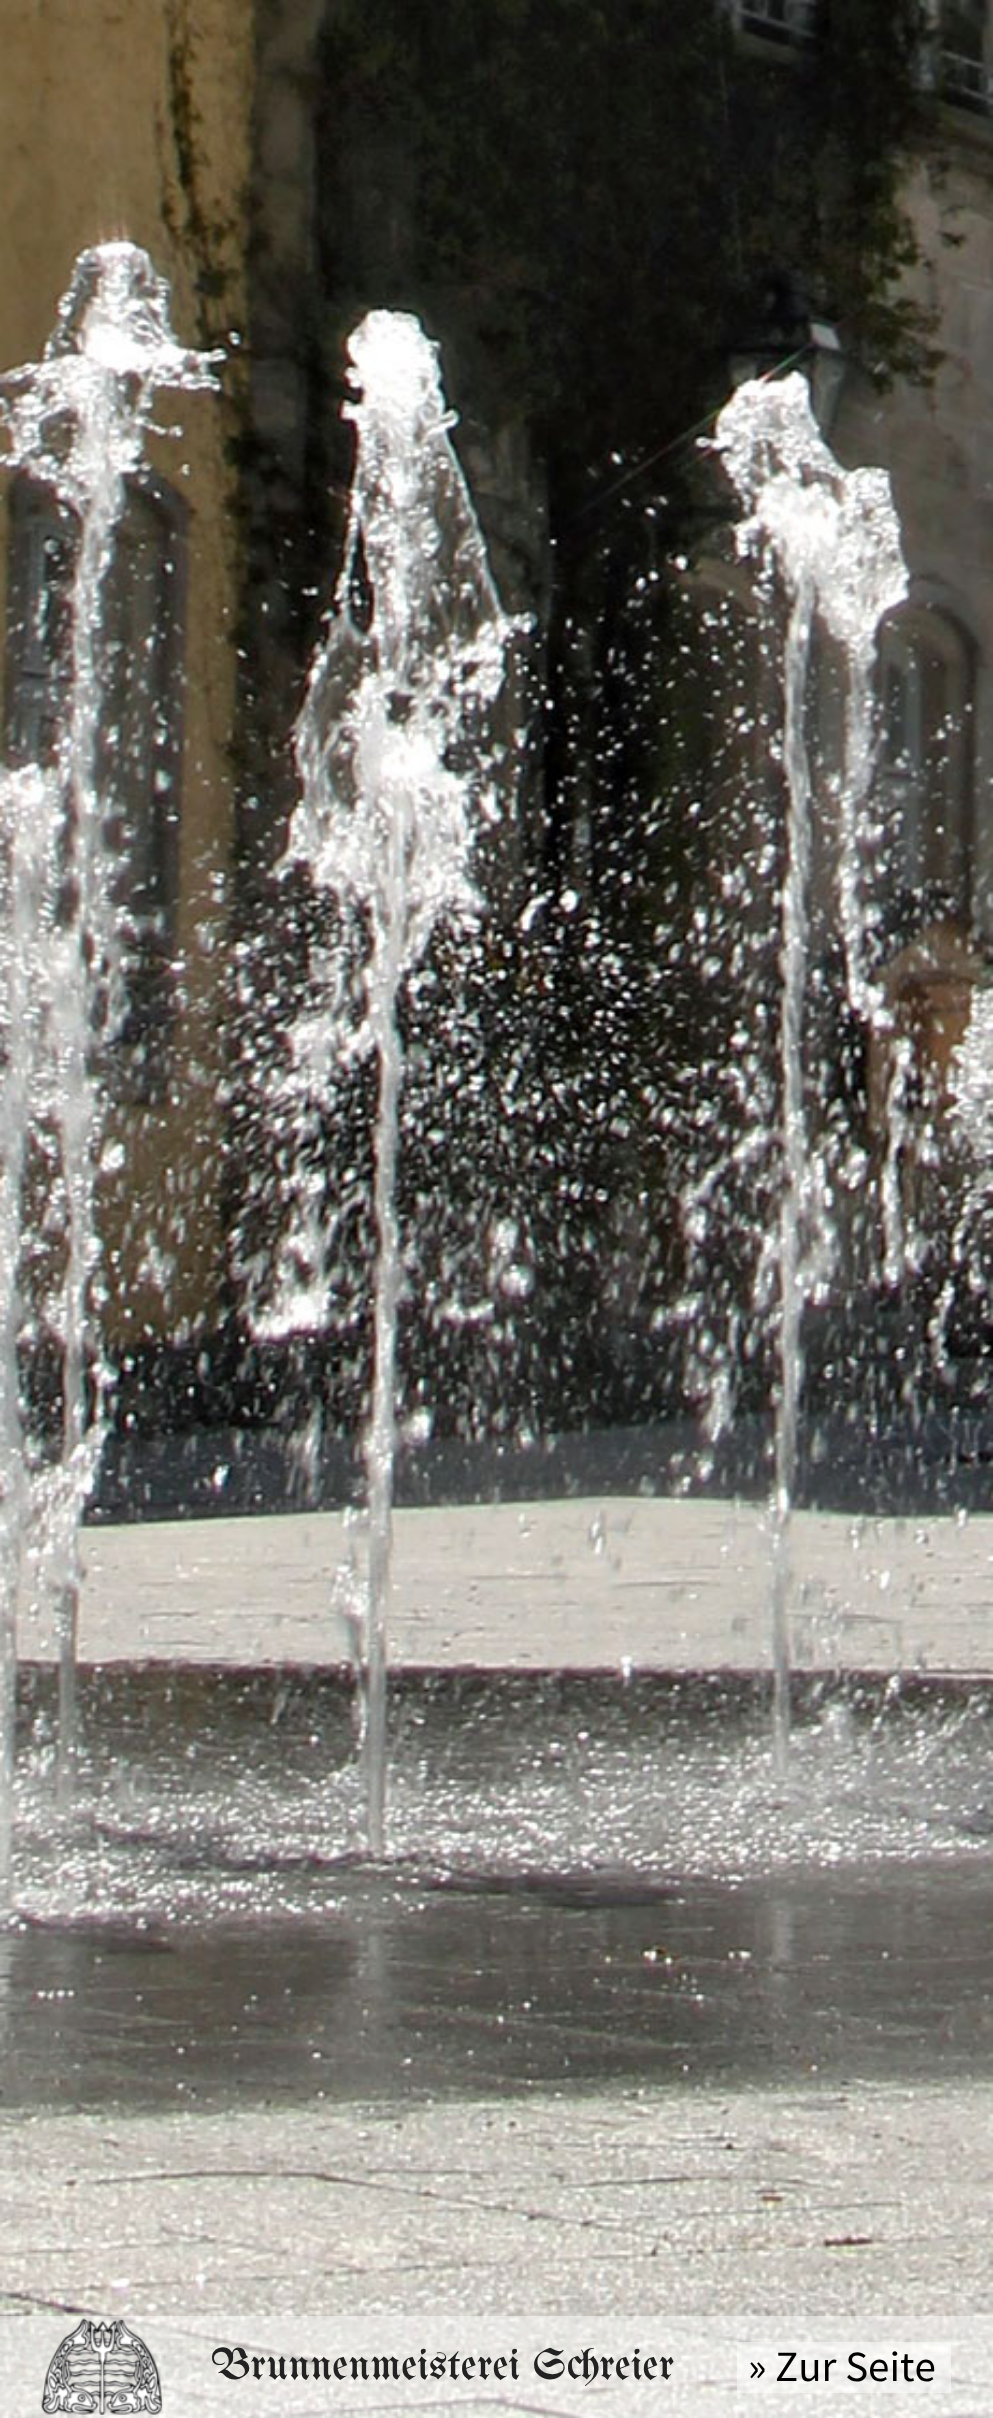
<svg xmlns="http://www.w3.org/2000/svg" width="993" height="2418">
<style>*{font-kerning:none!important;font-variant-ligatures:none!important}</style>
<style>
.a{font:43.75px UnifrakturMaguntia;fill:#222}
.b{font:43px Source Sans Pro;fill:#000}
</style>
<rect width="100%" height="100%" fill="#fff"/>
<image href="1.png" x="0" y="0" width="993" height="2418"/>
<path fill="#ffffff80" d="M0 2316h993v102H0z"/>
<image href="2.png" x="41" y="2318" width="121" height="97"/>
<path fill="#ffffff80" d="M737 2342h214v51H737z"/>
<text class="a" x="211" y="2379">Brunnenmeisterei Schreier</text>
<text class="b" x="748" y="2381">» Zur Seite</text>
</svg>
